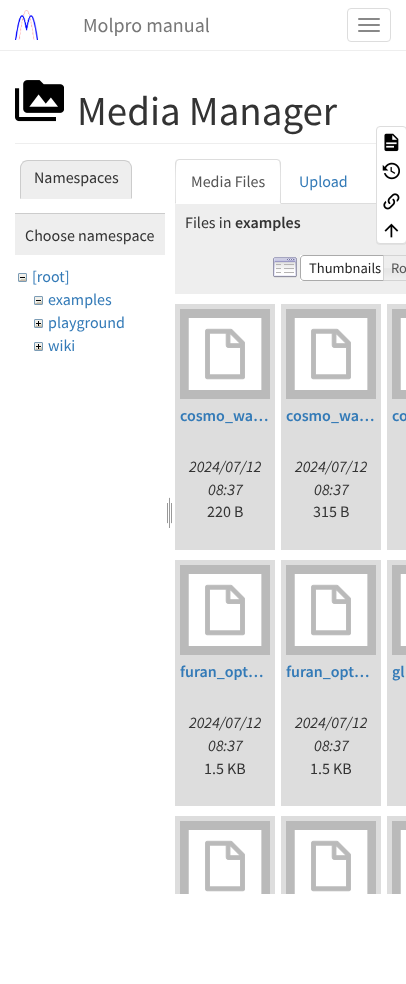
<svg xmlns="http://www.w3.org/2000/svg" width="406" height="984">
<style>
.a{font:20px Source Sans Pro;fill:#777}
.b{font:41px Source Sans Pro;fill:#333}
.c{font:16px Source Sans Pro;fill:#333}
.d{font:16px Source Sans Pro;fill:#337ab7}
.e{font:16px Source Sans Pro;fill:#555}
.f{font:600 16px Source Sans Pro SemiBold;fill:#333}
.g{font:14.5px Source Sans Pro;fill:#212121}
.h{font:14.5px Source Sans Pro;fill:#555}
.i{font:600 16px Source Sans Pro SemiBold;fill:#337ab7}
.j{font:italic 16px Source Sans Pro;fill:#333}
</style>
<rect width="100%" height="100%" fill="#fff"/>
<path fill="#eee" d="M0 50h406v1H0z"/>
<image href="1.png" x="15" y="10" width="23" height="30"/>
<rect fill="none" stroke="#ddd" x="347.5" y="8.5" width="43" height="33" rx="3.5"/>
<rect fill="#888" x="358" y="18" width="22" height="2" rx="1"/>
<rect fill="#888" x="358" y="24" width="22" height="2" rx="1"/>
<rect fill="#888" x="358" y="30" width="22" height="2" rx="1"/>
<path fill="#eee" d="M15 143h361v1H15z"/>
<image href="2.png" x="15" y="80" width="49" height="42"/>
<path fill="#eee" d="M28 160h96c4.5 0 8 3.5 8 8v31h-112v-31c0-4.5 3.5-8 8-8z"/>
<path fill="#ccc" d="M28 160c-2 0-4 1-6 2l1 1c1-1 3-2 5-2h96c2 0 4 1 5 2l1-1c-2-1-4-2-6-2z"/>
<path fill="#ccc" d="M132 199v-31c0-2-1-4-2.5-5.5l-.5 .5c1 1 2 3 2 5v30z"/>
<path fill="#eee" d="M132 199l-1-1h-110l-1 1z"/>
<path fill="#ccc" d="M20 199l1-1v-30c0-2 1-4 2-5l-.5-.5c-1.5 1.5-2.5 3.5-2.5 5.5z"/>
<path fill="#eee" d="M15 214h150v41H15z"/>
<path fill="#ccc" d="M15 213h150v1H15z"/>
<image href="3.png" x="18" y="273" width="9" height="9"/>
<image href="3.png" x="34" y="296" width="9" height="9"/>
<image href="4.png" x="34" y="319" width="9" height="9"/>
<image href="4.png" x="34" y="342" width="9" height="9"/>
<image href="5.png" x="167" y="497" width="5" height="31"/>
<path fill="#ddd" d="M281 203h95v1H281z"/>
<path fill="#ddd" d="M179 159l-3 1l1 1l2-1h98l2 1l1-1l-3-1z"/>
<path fill="#ddd" d="M281 204v-41c0-1-1-2-1-3l-1 1c2 2 1 37 1 42z"/>
<path fill="#ddd" d="M175 204l1-1c0-5-1-40 1-42l-1-1l-1 3z"/>
<path fill="#eee" d="M175 204h231v90H175z"/>
<image href="6.png" x="273" y="257" width="24" height="21"/>
<path fill="#fff" d="M300 255h83v26H300z"/>
<path fill="none" stroke="#aaa" d="M304 255.5h83.5v25h-83.5c-2 0-3.5-1.5-3.5-3.5v-18c0-2 1.5-3.5 3.5-3.5z"/>
<image href="7.png" x="384" y="256" width="22" height="24"/>
<path fill="none" stroke="#d3d3d3" d="M383.5 255.5h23v25H383.5z"/>
<path fill="#ddd" d="M175 304h100v246H175z"/>
<image href="8.png" x="180" y="309" width="90" height="90"/>
<path fill="#ddd" d="M281 304h100v246H281z"/>
<image href="8.png" x="286" y="309" width="90" height="90"/>
<path fill="#ddd" d="M387 304h19v246H387z"/>
<image href="9.png" x="392" y="309" width="14" height="90"/>
<path fill="#ddd" d="M175 560h100v246H175z"/>
<image href="8.png" x="180" y="565" width="90" height="90"/>
<path fill="#ddd" d="M281 560h100v246H281z"/>
<image href="8.png" x="286" y="565" width="90" height="90"/>
<path fill="#ddd" d="M387 560h19v246H387z"/>
<image href="9.png" x="392" y="565" width="14" height="90"/>
<path fill="#ddd" d="M175 816h100v78H175z"/>
<image href="10.png" x="180" y="821" width="90" height="73"/>
<path fill="#ddd" d="M281 816h100v78H281z"/>
<image href="10.png" x="286" y="821" width="90" height="73"/>
<path fill="#ddd" d="M387 816h19v78H387z"/>
<image href="11.png" x="392" y="821" width="14" height="73"/>
<rect fill="#0000000d" filter="blur(0.5px)" x="376" y="127" width="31" height="118" rx="4"/>
<rect fill="#fff" stroke="#ddd" x="376.5" y="126.5" width="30" height="117" rx="3.5"/>
<image href="12.png" x="384" y="133" width="15" height="19"/>
<image href="13.png" x="382" y="162" width="18" height="18"/>
<image href="14.png" x="383" y="193" width="17" height="17"/>
<image href="15.png" x="384" y="223" width="15" height="15"/>
<text class="a" x="83" y="32">Molpro manual</text>
<text class="b" x="77" y="125">Media Manager</text>
<text class="c" x="34" y="183">Namespaces</text>
<text class="c" x="25" y="241">Choose namespace</text>
<text class="d" x="32" y="282">[root]</text>
<text class="d" x="48" y="305">examples</text>
<text class="d" x="48" y="328">playground</text>
<text class="d" x="48" y="351">wiki</text>
<text class="e" x="191" y="187">Media Files</text>
<text class="d" x="299" y="187">Upload</text>
<text class="c" x="185" y="228">Files in</text>
<text class="f" x="235" y="228">examples</text>
<text class="g" x="309" y="273">Thumbnails</text>
<text class="h" x="391" y="273">Ro</text>
<text class="i" x="180" y="421">cosmo_wa…</text>
<text class="j" x="189" y="472">2024/07/12</text>
<text class="j" x="208" y="495">08:37</text>
<text class="c" x="207" y="517">220 B</text>
<text class="i" x="286" y="421">cosmo_wa…</text>
<text class="j" x="295" y="472">2024/07/12</text>
<text class="j" x="314" y="495">08:37</text>
<text class="c" x="313" y="517">315 B</text>
<text class="i" x="392" y="421">co</text>
<text class="i" x="180" y="677">furan_opt…</text>
<text class="j" x="189" y="728">2024/07/12</text>
<text class="j" x="208" y="751">08:37</text>
<text class="c" x="204" y="774">1.5 KB</text>
<text class="i" x="286" y="677">furan_opt…</text>
<text class="j" x="295" y="728">2024/07/12</text>
<text class="j" x="314" y="751">08:37</text>
<text class="c" x="310" y="774">1.5 KB</text>
<text class="i" x="392" y="677">gl</text>
</svg>
